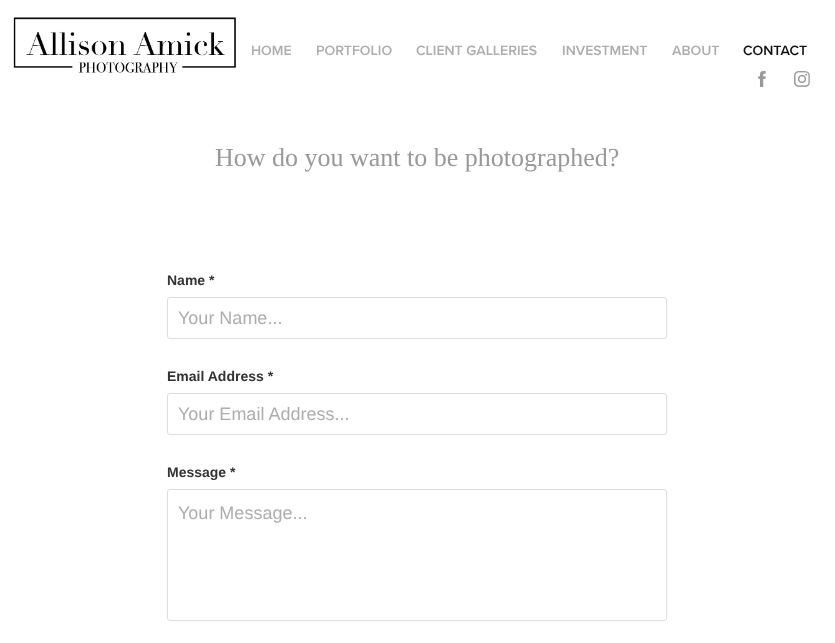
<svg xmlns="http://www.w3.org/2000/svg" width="835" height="643">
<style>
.a{font:600 14px Proxima Nova;fill:#adadad}
.b{font:600 14px Proxima Nova;fill:#111}
.c{font:26px Liberation Serif;fill:#999}
.d{font:bold 14px Liberation Sans;fill:#333}
.e{font:18px Liberation Sans;fill:#adadad}
</style>
<rect width="100%" height="100%" fill="#fff"/>
<image href="1.png" x="13" y="17" width="223" height="56"/>
<image href="2.png" x="758" y="71" width="8" height="16"/>
<image href="3.png" x="794" y="71" width="16" height="16"/>
<rect fill="none" stroke="#ddd" x="167.5" y="297.5" width="499" height="41" rx="2.5"/>
<rect fill="none" stroke="#ddd" x="167.5" y="393.5" width="499" height="41" rx="2.5"/>
<rect fill="none" stroke="#ddd" x="167.5" y="489.5" width="499" height="131" rx="2.5"/>
<text class="a" x="251" y="55">HOME</text>
<text class="a" x="316" y="55">PORTFOLIO</text>
<text class="a" x="416" y="55">CLIENT GALLERIES</text>
<text class="a" x="562" y="55">INVESTMENT</text>
<text class="a" x="672" y="55">ABOUT</text>
<text class="b" x="743" y="55">CONTACT</text>
<text class="c" x="215" y="166">How do you want to be photographed?</text>
<text class="d" x="167" y="285">Name *</text>
<text class="e" x="178" y="324">Your Name...</text>
<text class="d" x="167" y="381">Email Address *</text>
<text class="e" x="178" y="420">Your Email Address...</text>
<text class="d" x="167" y="477">Message *</text>
<text class="e" x="178" y="519">Your Message...</text>
</svg>
